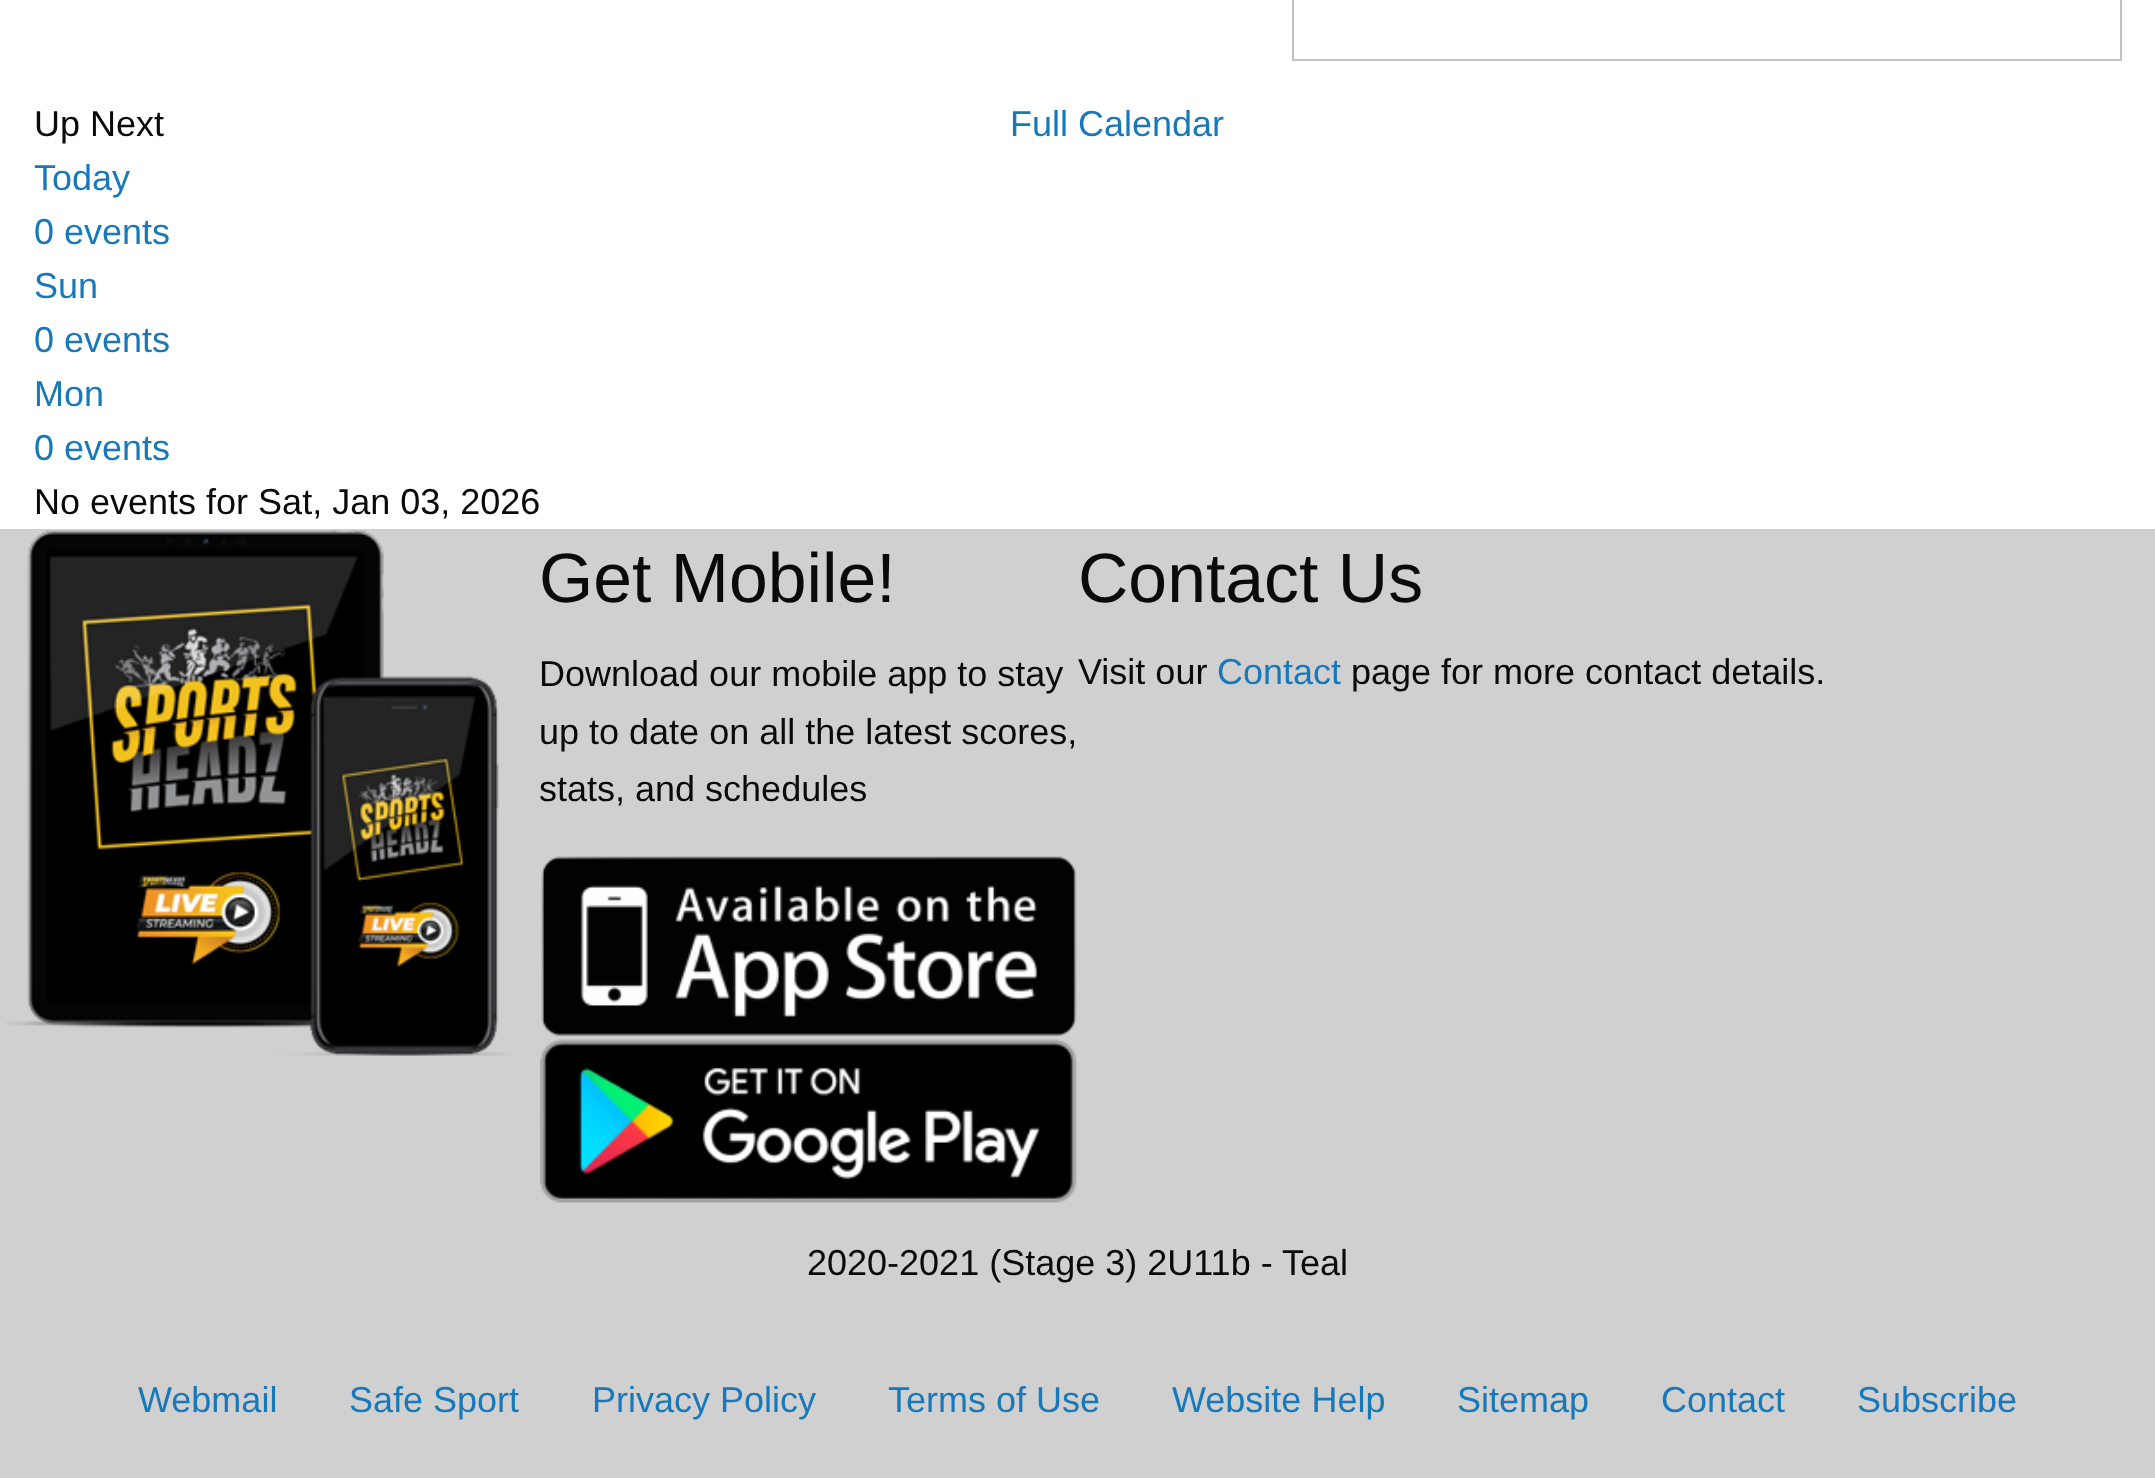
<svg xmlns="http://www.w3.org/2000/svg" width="2155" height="1478">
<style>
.a{font:36px Liberation Sans;fill:#0a0a0a}
.b{font:36px Liberation Sans;fill:#1779ba}
.c{font:69.75px Liberation Sans;fill:#0a0a0a}
</style>
<rect width="100%" height="100%" fill="#d0d0d0"/>
<path fill="#fff" d="M0 0h2155v529H0z"/>
<path fill="none" stroke="#c2c2c2" stroke-width="2" d="M1293 -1h828v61H1293z"/>
<image href="1.png" x="5" y="529" width="507" height="527"/>
<image href="2.png" x="541" y="856" width="536" height="181"/>
<image href="3.png" x="540" y="1039" width="537" height="164"/>
<text class="a" x="34" y="136">Up Next</text>
<text class="b" x="1010" y="136">Full Calendar</text>
<text class="b" x="34" y="190">Today</text>
<text class="b" x="34" y="244">0 events</text>
<text class="b" x="34" y="298">Sun</text>
<text class="b" x="34" y="352">0 events</text>
<text class="b" x="34" y="406">Mon</text>
<text class="b" x="34" y="460">0 events</text>
<text class="a" x="34" y="514">No events for Sat, Jan 03, 2026</text>
<text class="c" x="539" y="602">Get Mobile!</text>
<text class="a" x="539" y="686">Download our mobile app to stay</text>
<text class="a" x="539" y="744">up to date on all the latest scores,</text>
<text class="a" x="539" y="801">stats, and schedules</text>
<text class="c" x="1078" y="602">Contact Us</text>
<text class="a" x="1078" y="684">Visit our</text>
<text class="b" x="1217" y="684">Contact</text>
<text class="a" x="1351" y="684">page for more contact details.</text>
<text class="a" x="807" y="1275">2020-2021 (Stage 3) 2U11b - Teal</text>
<text class="b" x="138" y="1412">Webmail</text>
<text class="b" x="349" y="1412">Safe Sport</text>
<text class="b" x="592" y="1412">Privacy Policy</text>
<text class="b" x="888" y="1412">Terms of Use</text>
<text class="b" x="1172" y="1412">Website Help</text>
<text class="b" x="1457" y="1412">Sitemap</text>
<text class="b" x="1661" y="1412">Contact</text>
<text class="b" x="1857" y="1412">Subscribe</text>
</svg>
